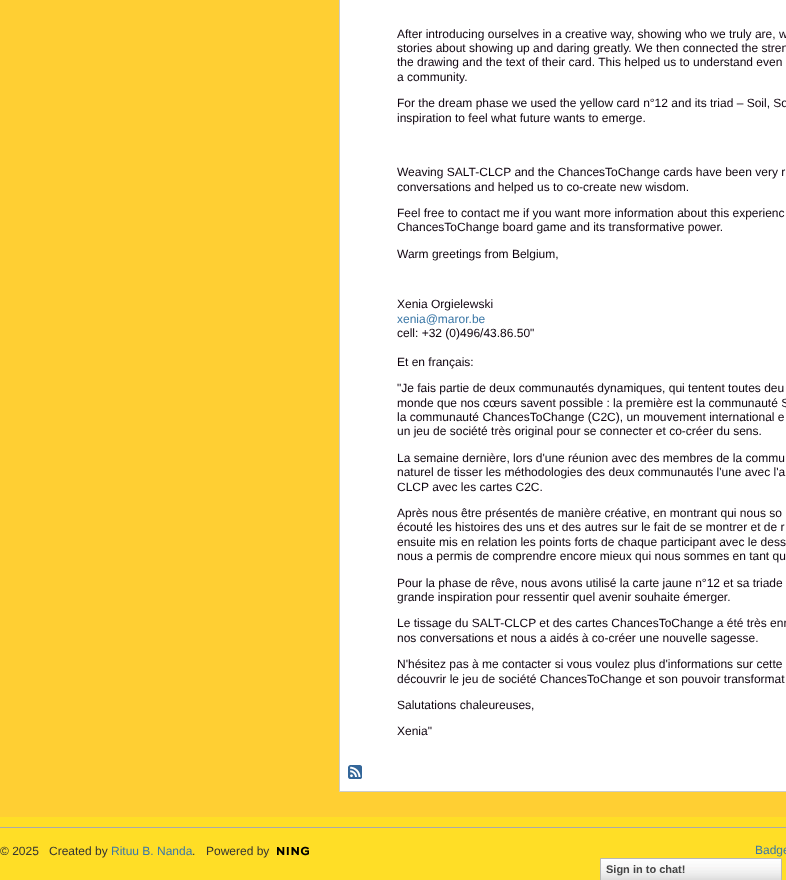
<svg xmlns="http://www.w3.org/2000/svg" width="786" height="880">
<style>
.a{font:12px Liberation Sans;fill:#0d020d}
.b{font:12px Liberation Sans;fill:#3c78a7}
.c{font:12px Liberation Sans;fill:#333}
.d{font:bold 11px Liberation Sans;fill:#454545}
</style>
<rect width="100%" height="100%" fill="#ffde26"/>
<path fill="#ffcf33" d="M0 0h786v817H0z"/>
<path fill="#fff" stroke="#ccc" d="M339.5 -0.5h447v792H339.5z"/>
<image href="1.png" x="348" y="765" width="14" height="14"/>
<path fill="#aaa" d="M0 827h786v1H0z"/>
<image href="2.png" x="277" y="846" width="32" height="10"/>
<image href="3.png" x="601" y="859" width="180" height="21"/>
<path fill="none" stroke="#b7b7b7" d="M600.5 858.5h181v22H600.5z"/>
<text class="a" x="397" y="38">After introducing ourselves in a creative way, showing who we truly are, w</text>
<text class="a" x="397" y="52">stories about showing up and daring greatly. We then connected the stren</text>
<text class="a" x="397" y="66">the drawing and the text of their card. This helped us to understand even</text>
<text class="a" x="397" y="81">a community.</text>
<text class="a" x="397" y="107">For the dream phase we used the yellow card n°12 and its triad – Soil, So</text>
<text class="a" x="397" y="122">inspiration to feel what future wants to emerge.</text>
<text class="a" x="397" y="176">Weaving SALT-CLCP and the ChancesToChange cards have been very r</text>
<text class="a" x="397" y="191">conversations and helped us to co-create new wisdom.</text>
<text class="a" x="397" y="217">Feel free to contact me if you want more information about this experienc</text>
<text class="a" x="397" y="231">ChancesToChange board game and its transformative power.</text>
<text class="a" x="397" y="258">Warm greetings from Belgium,</text>
<text class="a" x="397" y="308">Xenia Orgielewski</text>
<text class="b" x="397" y="323">xenia@maror.be</text>
<text class="a" x="397" y="337">cell: +32 (0)496/43.86.50"</text>
<text class="a" x="397" y="366">Et en français:</text>
<text class="a" x="397" y="392">"Je fais partie de deux communautés dynamiques, qui tentent toutes deu</text>
<text class="a" x="397" y="407">monde que nos cœurs savent possible : la première est la communauté S</text>
<text class="a" x="397" y="421">la communauté ChancesToChange (C2C), un mouvement international e</text>
<text class="a" x="397" y="435">un jeu de société très original pour se connecter et co-créer du sens.</text>
<text class="a" x="397" y="462">La semaine dernière, lors d'une réunion avec des membres de la commu</text>
<text class="a" x="397" y="476">naturel de tisser les méthodologies des deux communautés l'une avec l'a</text>
<text class="a" x="397" y="491">CLCP avec les cartes C2C.</text>
<text class="a" x="397" y="517">Après nous être présentés de manière créative, en montrant qui nous so</text>
<text class="a" x="397" y="531">écouté les histoires des uns et des autres sur le fait de se montrer et de r</text>
<text class="a" x="397" y="546">ensuite mis en relation les points forts de chaque participant avec le dess</text>
<text class="a" x="397" y="560">nous a permis de comprendre encore mieux qui nous sommes en tant qu</text>
<text class="a" x="397" y="587">Pour la phase de rêve, nous avons utilisé la carte jaune n°12 et sa triade</text>
<text class="a" x="397" y="601">grande inspiration pour ressentir quel avenir souhaite émerger.</text>
<text class="a" x="397" y="627">Le tissage du SALT-CLCP et des cartes ChancesToChange a été très enr</text>
<text class="a" x="397" y="642">nos conversations et nous a aidés à co-créer une nouvelle sagesse.</text>
<text class="a" x="397" y="668">N'hésitez pas à me contacter si vous voulez plus d'informations sur cette</text>
<text class="a" x="397" y="683">découvrir le jeu de société ChancesToChange et son pouvoir transformat</text>
<text class="a" x="397" y="709">Salutations chaleureuses,</text>
<text class="a" x="397" y="735">Xenia"</text>
<text class="c" x="0" y="855">© 2025</text>
<text class="c" x="49" y="855">Created by</text>
<text class="b" x="111" y="855">Rituu B. Nanda</text>
<text class="c" x="192" y="855">.</text>
<text class="c" x="206" y="855">Powered by</text>
<text class="b" x="755" y="854">Badge</text>
<text class="d" x="606" y="873">Sign in to chat!</text>
</svg>
